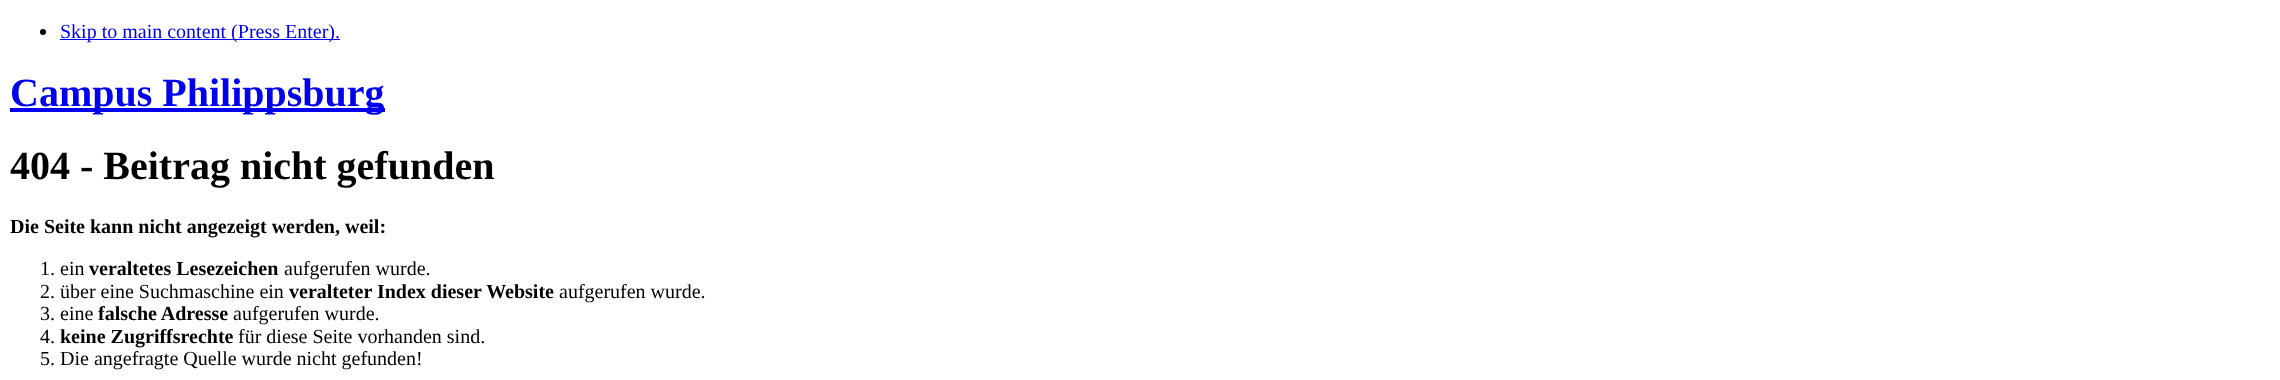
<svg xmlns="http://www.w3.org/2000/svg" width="2280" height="380">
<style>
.a{font:20px Liberation Serif;fill:#00e}
.b{font:bold 40px Liberation Serif;fill:#00e}
.c{font:bold 40px Liberation Serif;fill:#000}
.d{font:bold 20px Liberation Serif;fill:#000}
.e{font:20px Liberation Serif;fill:#000}
</style>
<rect width="100%" height="100%" fill="#fff"/>
<circle fill="#000" cx="43" cy="32" r="3"/>
<path fill="#00e" d="M60 39h280v1H60z"/>
<path fill="#00e" d="M10 108h375v4H10z"/>
<text class="a" x="60" y="38">Skip to main content (Press Enter).</text>
<text class="b" x="10" y="106">Campus Philippsburg</text>
<text class="c" x="10" y="179">404 - Beitrag nicht gefunden</text>
<text class="d" x="10" y="233">Die Seite kann nicht angezeigt werden, weil:</text>
<text class="e" x="40" y="275">1. ein</text>
<text class="d" x="89" y="275">veraltetes Lesezeichen</text>
<text class="e" x="284" y="275">aufgerufen wurde.</text>
<text class="e" x="40" y="298">2. über eine Suchmaschine ein</text>
<text class="d" x="289" y="298">veralteter Index dieser Website</text>
<text class="e" x="559" y="298">aufgerufen wurde.</text>
<text class="e" x="40" y="320">3. eine</text>
<text class="d" x="98" y="320">falsche Adresse</text>
<text class="e" x="233" y="320">aufgerufen wurde.</text>
<text class="e" x="40" y="343">4.</text>
<text class="d" x="60" y="343">keine Zugriffsrechte</text>
<text class="e" x="238" y="343">für diese Seite vorhanden sind.</text>
<text class="e" x="40" y="365">5. Die angefragte Quelle wurde nicht gefunden!</text>
</svg>
